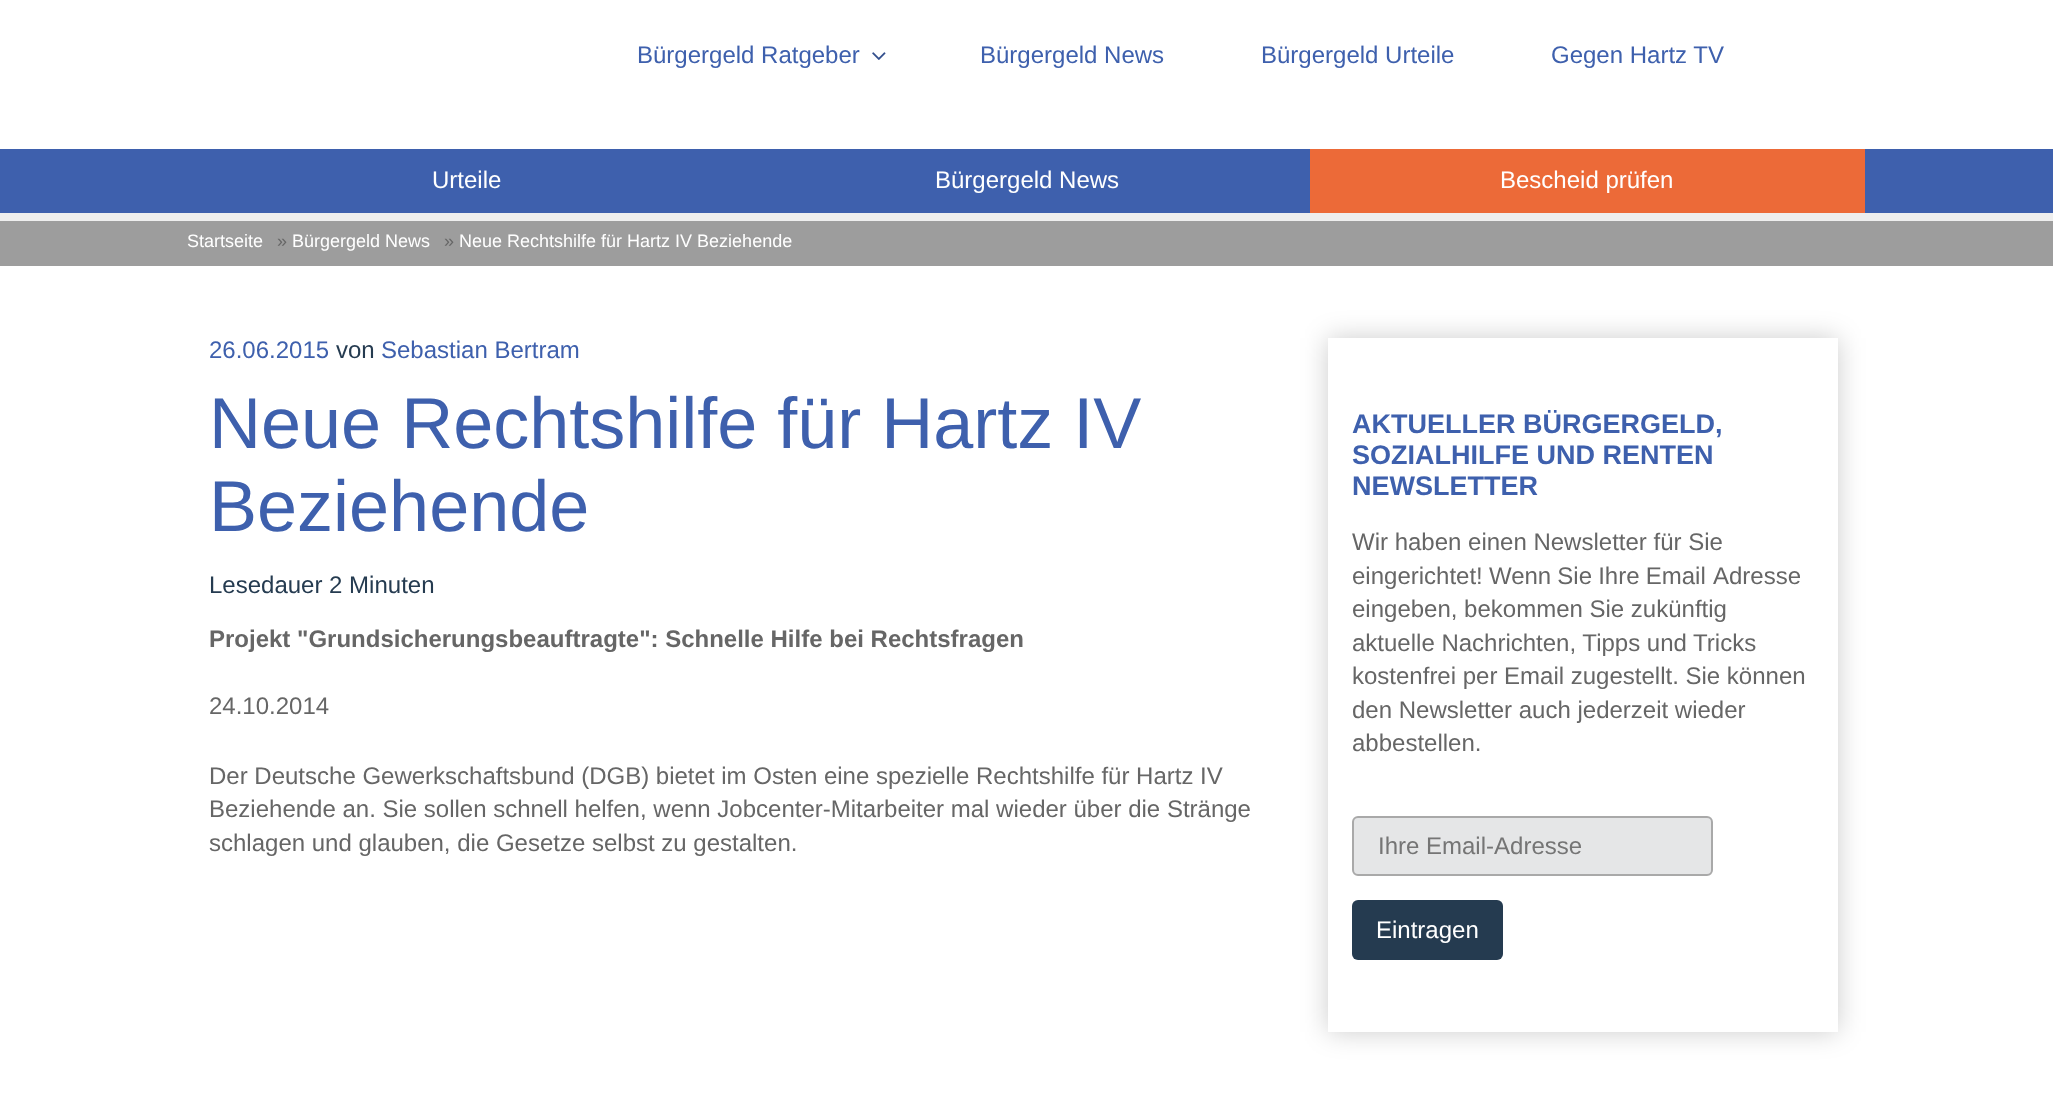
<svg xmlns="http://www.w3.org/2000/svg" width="2053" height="1108">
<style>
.a{font:24px Liberation Sans;fill:#3e60ad}
.b{font:24px Liberation Sans;fill:#fff}
.c{font:18px Liberation Sans;fill:#fff}
.d{font:18px Liberation Sans;fill:#666}
.e{font:24px Liberation Sans;fill:#253b50}
.f{font:72px Liberation Sans;fill:#3e60ad}
.g{font:bold 24px Liberation Sans;fill:#666}
.h{font:24px Liberation Sans;fill:#666}
.i{font:bold 27px Liberation Sans;fill:#3e60ad}
.j{font:24px Liberation Sans;fill:#757575}
</style>
<defs>
<clipPath id="clip1"><path d="M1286 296h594v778h-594zm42 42h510v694h-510z" clip-rule="evenodd"/></clipPath>
</defs>
<rect width="100%" height="100%" fill="#fff"/>
<image href="1.png" x="872" y="52" width="14" height="8"/>
<path fill="#3e60ad" d="M0 149h2053v64H0z"/>
<path fill="#ec6a38" d="M1310 149h555v64H1310z"/>
<path fill="#eee" d="M0 213h2053v8H0z"/>
<path fill="#9d9d9d" d="M0 221h2053v45H0z"/>
<g clip-path="url(#clip1)">
<path fill="#00000033" filter="blur(13.5px)" d="M1328 338h510v694H1328z"/>
</g>
<rect fill="#e5e6e7" stroke="#a9a9a9" stroke-width="2" x="1353" y="817" width="359" height="58" rx="5"/>
<rect fill="#253b50" x="1352" y="900" width="151" height="60" rx="6"/>
<text class="a" x="637" y="63">Bürgergeld Ratgeber</text>
<text class="a" x="980" y="63">Bürgergeld News</text>
<text class="a" x="1261" y="63">Bürgergeld Urteile</text>
<text class="a" x="1551" y="63">Gegen Hartz TV</text>
<text class="b" x="432" y="188">Urteile</text>
<text class="b" x="935" y="188">Bürgergeld News</text>
<text class="b" x="1500" y="188">Bescheid prüfen</text>
<text class="c" x="187" y="247">Startseite</text>
<text class="d" x="277" y="247">»</text>
<text class="c" x="292" y="247">Bürgergeld News</text>
<text class="d" x="444" y="247">»</text>
<text class="c" x="459" y="247">Neue Rechtshilfe für Hartz IV Beziehende</text>
<text class="a" x="209" y="358">26.06.2015</text>
<text class="e" x="336" y="358">von</text>
<text class="a" x="381" y="358">Sebastian Bertram</text>
<text class="f" x="209" y="448">Neue Rechtshilfe für Hartz IV</text>
<text class="f" x="209" y="531">Beziehende</text>
<text class="e" x="209" y="593">Lesedauer 2 Minuten</text>
<text class="g" x="209" y="647">Projekt "Grundsicherungsbeauftragte": Schnelle Hilfe bei Rechtsfragen</text>
<text class="h" x="209" y="714">24.10.2014</text>
<text class="h" x="209" y="784">Der Deutsche Gewerkschaftsbund (DGB) bietet im Osten eine spezielle Rechtshilfe für Hartz IV</text>
<text class="h" x="209" y="817">Beziehende an. Sie sollen schnell helfen, wenn Jobcenter-Mitarbeiter mal wieder über die Stränge</text>
<text class="h" x="209" y="851">schlagen und glauben, die Gesetze selbst zu gestalten.</text>
<text class="i" x="1352" y="433">AKTUELLER BÜRGERGELD,</text>
<text class="i" x="1352" y="464">SOZIALHILFE UND RENTEN</text>
<text class="i" x="1352" y="495">NEWSLETTER</text>
<text class="h" x="1352" y="550">Wir haben einen Newsletter für Sie</text>
<text class="h" x="1352" y="584" word-spacing="-0.5">eingerichtet! Wenn Sie Ihre Email</text>
<text class="h" x="1713" y="584">Adresse</text>
<text class="h" x="1352" y="617">eingeben, bekommen Sie zukünftig</text>
<text class="h" x="1352" y="651">aktuelle Nachrichten, Tipps und Tricks</text>
<text class="h" x="1352" y="684">kostenfrei per Email zugestellt. Sie können</text>
<text class="h" x="1352" y="718">den Newsletter auch jederzeit wieder</text>
<text class="h" x="1352" y="751">abbestellen.</text>
<text class="j" x="1378" y="854">Ihre Email-Adresse</text>
<text class="b" x="1376" y="938">Eintragen</text>
</svg>
